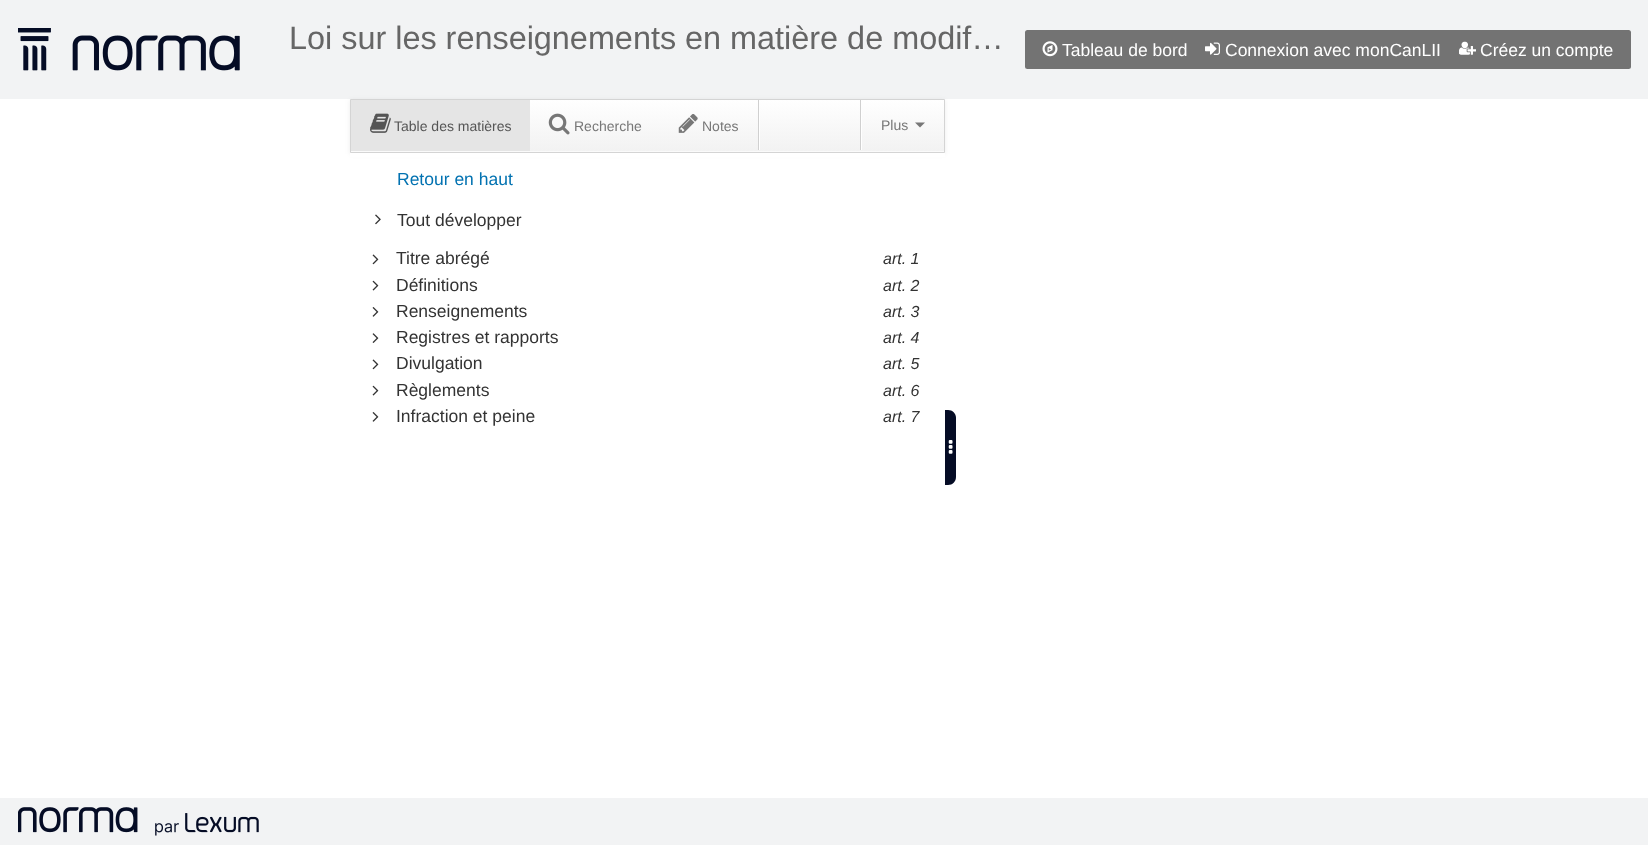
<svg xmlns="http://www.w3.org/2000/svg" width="1648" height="845">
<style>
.a{font:32.4px Liberation Sans;fill:#666}
.b{font:17.5px Liberation Sans;fill:#fff}
.c{font:14px Liberation Sans;fill:#555}
.d{font:14px Liberation Sans;fill:#777}
.e{font:17.5px Liberation Sans;fill:#0272b1}
.f{font:17.5px Liberation Sans;fill:#333}
.g{font:italic 16px Liberation Sans;fill:#333}
</style>
<defs>
<linearGradient id="g1" gradientUnits="userSpaceOnUse" x1="648" y1="100" x2="648" y2="151"><stop offset="0" stop-color="#fff"/><stop offset="1" stop-color="#f2f2f2"/></linearGradient>
</defs>
<rect width="100%" height="100%" fill="#fff"/>
<path fill="#f2f3f4" d="M0 0h1648v99H0z"/>
<image href="1.png" x="18" y="28" width="222" height="43"/>
<rect fill="#737373" x="1025" y="30" width="606" height="39" rx="2.5"/>
<image href="2.png" x="1042" y="41" width="16" height="16"/>
<image href="3.png" x="1205" y="42" width="15" height="13"/>
<image href="4.png" x="1459" y="41" width="17" height="14"/>
<path fill="#00000012" filter="blur(2.5px)" d="M350 100h595v54H350z"/>
<path fill="#fafafa" d="M351 151h593v1H351z"/>
<path fill="url(#g1)" d="M530 100h414v51H530z"/>
<path fill="none" stroke="#d4d4d4" d="M350.5 99.5h594v53H350.5z"/>
<path fill="#e5e5e5" d="M351 100h179v51H351z"/>
<image href="5.png" x="370" y="113" width="21" height="20"/>
<image href="6.png" x="548" y="113" width="22" height="22"/>
<image href="7.png" x="678" y="114" width="20" height="19"/>
<path fill="#fff" d="M759 110h1v40H759z"/>
<path fill="#d0d0d0" d="M758 100h1v50H758z"/>
<path fill="#fff" d="M861 110h1v40H861z"/>
<path fill="#d0d0d0" d="M860 100h1v50H860z"/>
<path fill="#777" d="M915 122.5h10l-5 5z"/>
<path fill="#fff" d="M350 153h595v4H350z"/>
<image href="8.png" x="375" y="214" width="6" height="11"/>
<image href="9.png" x="372" y="254" width="7" height="11"/>
<image href="10.png" x="372" y="280" width="7" height="11"/>
<image href="11.png" x="372" y="307" width="7" height="10"/>
<image href="12.png" x="372" y="333" width="7" height="10"/>
<image href="9.png" x="372" y="359" width="7" height="11"/>
<image href="10.png" x="372" y="385" width="7" height="11"/>
<image href="11.png" x="372" y="412" width="7" height="10"/>
<path fill="#050c25" d="M945 410h3c4.5 0 8 3.5 8 8v59c0 4.5-3.5 8-8 8h-3z"/>
<image href="13.png" x="948" y="440" width="5" height="14"/>
<path fill="#f2f3f4" d="M0 798h1648v47H0z"/>
<image href="14.png" x="18" y="807" width="241" height="29"/>
<text class="a" x="289" y="49">Loi sur les renseignements en matière de modif…</text>
<text class="b" x="1062" y="56">Tableau de bord</text>
<text class="b" x="1225" y="56">Connexion avec monCanLII</text>
<text class="b" x="1480" y="56">Créez un compte</text>
<text class="c" x="394" y="131">Table des matières</text>
<text class="d" x="574" y="131">Recherche</text>
<text class="d" x="702" y="131">Notes</text>
<text class="d" x="881" y="130">Plus</text>
<text class="e" x="397" y="185">Retour en haut</text>
<text class="f" x="397" y="226">Tout développer</text>
<text class="f" x="396" y="264">Titre abrégé</text>
<text class="g" x="883" y="264">art. 1</text>
<text class="f" x="396" y="291">Définitions</text>
<text class="g" x="883" y="291">art. 2</text>
<text class="f" x="396" y="317">Renseignements</text>
<text class="g" x="883" y="317">art. 3</text>
<text class="f" x="396" y="343">Registres et rapports</text>
<text class="g" x="883" y="343">art. 4</text>
<text class="f" x="396" y="369">Divulgation</text>
<text class="g" x="883" y="369">art. 5</text>
<text class="f" x="396" y="396">Règlements</text>
<text class="g" x="883" y="396">art. 6</text>
<text class="f" x="396" y="422">Infraction et peine</text>
<text class="g" x="883" y="422">art. 7</text>
</svg>
